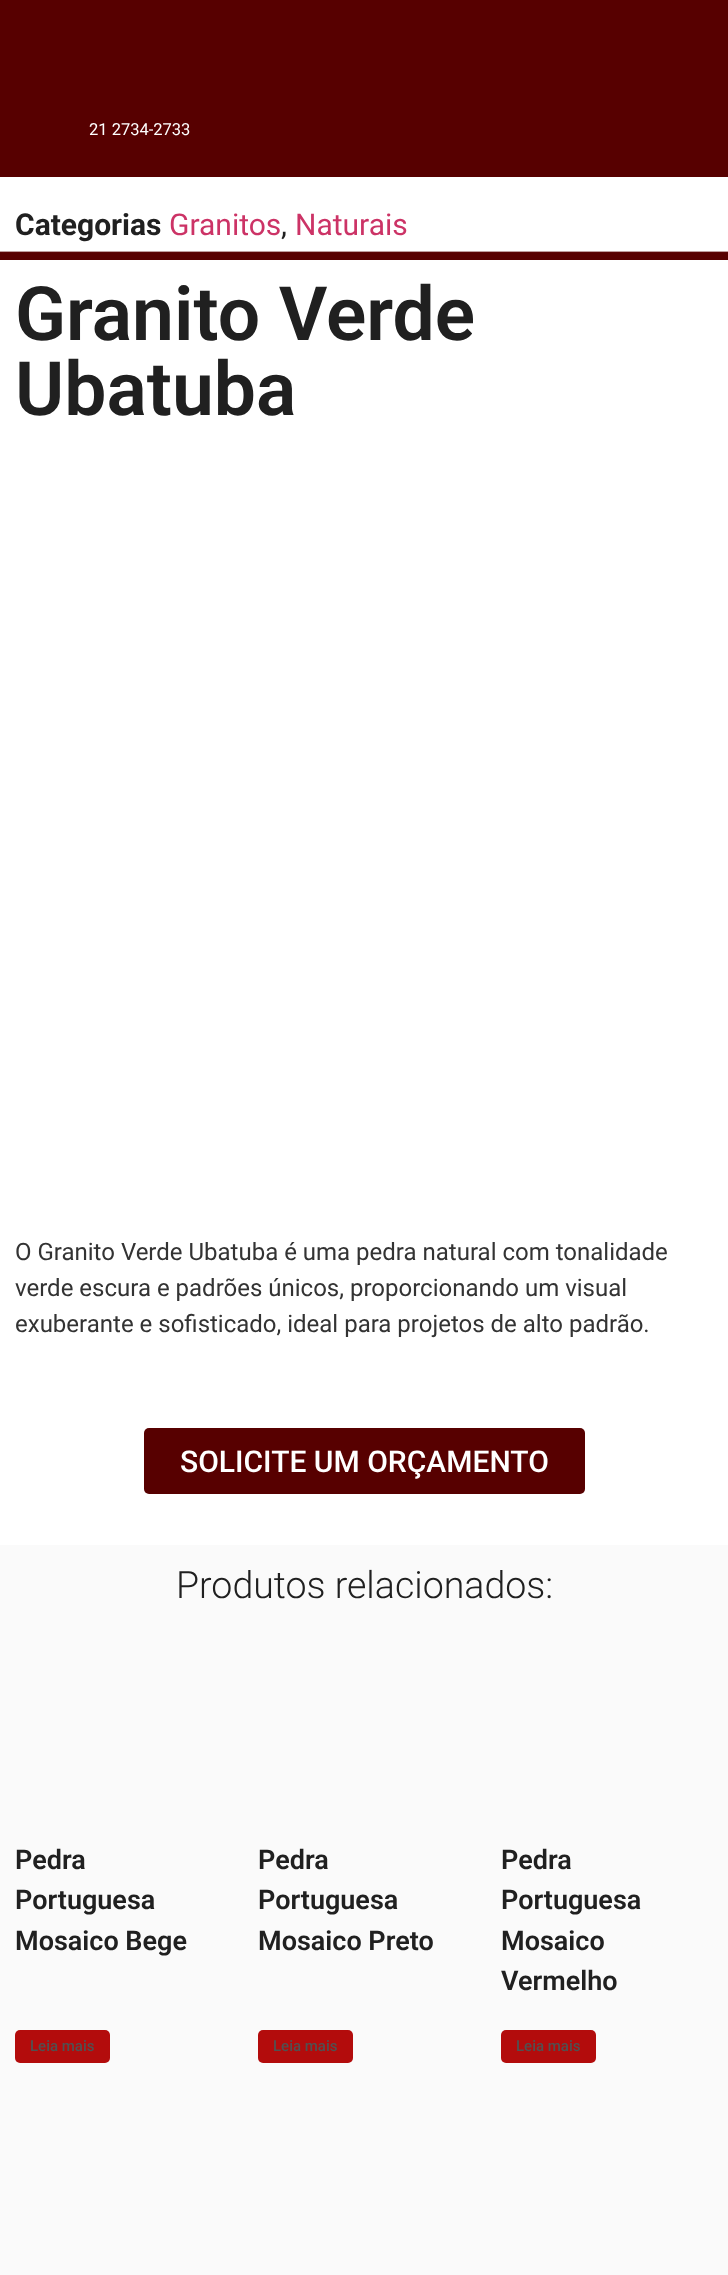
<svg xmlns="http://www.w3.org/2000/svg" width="728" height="2275">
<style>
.a{font:16.5px Roboto;fill:#fff}
.b{font:bold 30px Roboto;fill:#202020}
.c{font:30px Roboto;fill:#c36}
.d{font:30px Roboto;fill:#202020}
.e{font:600 75px Roboto;fill:#202020}
.f{font:24px Roboto;fill:#333}
.g{font:500 30px Roboto;fill:#fff}
.h{font:300 37.5px Roboto;fill:#202020}
.i{font:600 27px Roboto;fill:#202020}
.j{font:500 15px Roboto;fill:#515151}
</style>
<defs>
<linearGradient id="g1" gradientUnits="userSpaceOnUse" x1="365" y1="260" x2="365" y2="177"><stop offset="0.09" stop-color="#570000"/><stop offset="0.11" stop-color="#fff"/></linearGradient>
</defs>
<rect width="100%" height="100%" fill="#fff"/>
<path fill="#570000" d="M0 0h728v177H0z"/>
<path fill="url(#g1)" d="M0 251h728v9H0z"/>
<rect fill="#570000" x="144" y="1428" width="441" height="66" rx="5"/>
<path fill="#fafafa" d="M0 1545h728v730H0z"/>
<rect fill="#b30c0c" x="15" y="2030" width="95" height="33" rx="5"/>
<rect fill="#b30c0c" x="258" y="2030" width="95" height="33" rx="5"/>
<rect fill="#b30c0c" x="501" y="2030" width="95" height="33" rx="5"/>
<text class="a" x="89" y="135">21 2734-2733</text>
<text class="b" x="15" y="235">Categorias</text>
<text class="c" x="169" y="235">Granitos</text>
<text class="d" x="281" y="235">,</text>
<text class="c" x="295" y="235">Naturais</text>
<text class="e" x="15" y="340">Granito Verde</text>
<text class="e" x="15" y="415">Ubatuba</text>
<text class="f" x="15" y="1260">O Granito Verde Ubatuba é uma pedra natural com tonalidade</text>
<text class="f" x="15" y="1296">verde escura e padrões únicos, proporcionando um visual</text>
<text class="f" x="15" y="1332">exuberante e sofisticado, ideal para projetos de alto padrão.</text>
<text class="g" x="180" y="1472">SOLICITE UM ORÇAMENTO</text>
<text class="h" x="176" y="1598">Produtos relacionados:</text>
<text class="i" x="15" y="1869">Pedra</text>
<text class="i" x="15" y="1909">Portuguesa</text>
<text class="i" x="15" y="1950">Mosaico Bege</text>
<text class="j" x="30" y="2051">Leia mais</text>
<text class="i" x="258" y="1869">Pedra</text>
<text class="i" x="258" y="1909">Portuguesa</text>
<text class="i" x="258" y="1950">Mosaico Preto</text>
<text class="j" x="273" y="2051">Leia mais</text>
<text class="i" x="501" y="1869">Pedra</text>
<text class="i" x="501" y="1909">Portuguesa</text>
<text class="i" x="501" y="1950">Mosaico</text>
<text class="i" x="501" y="1990">Vermelho</text>
<text class="j" x="516" y="2051">Leia mais</text>
</svg>
